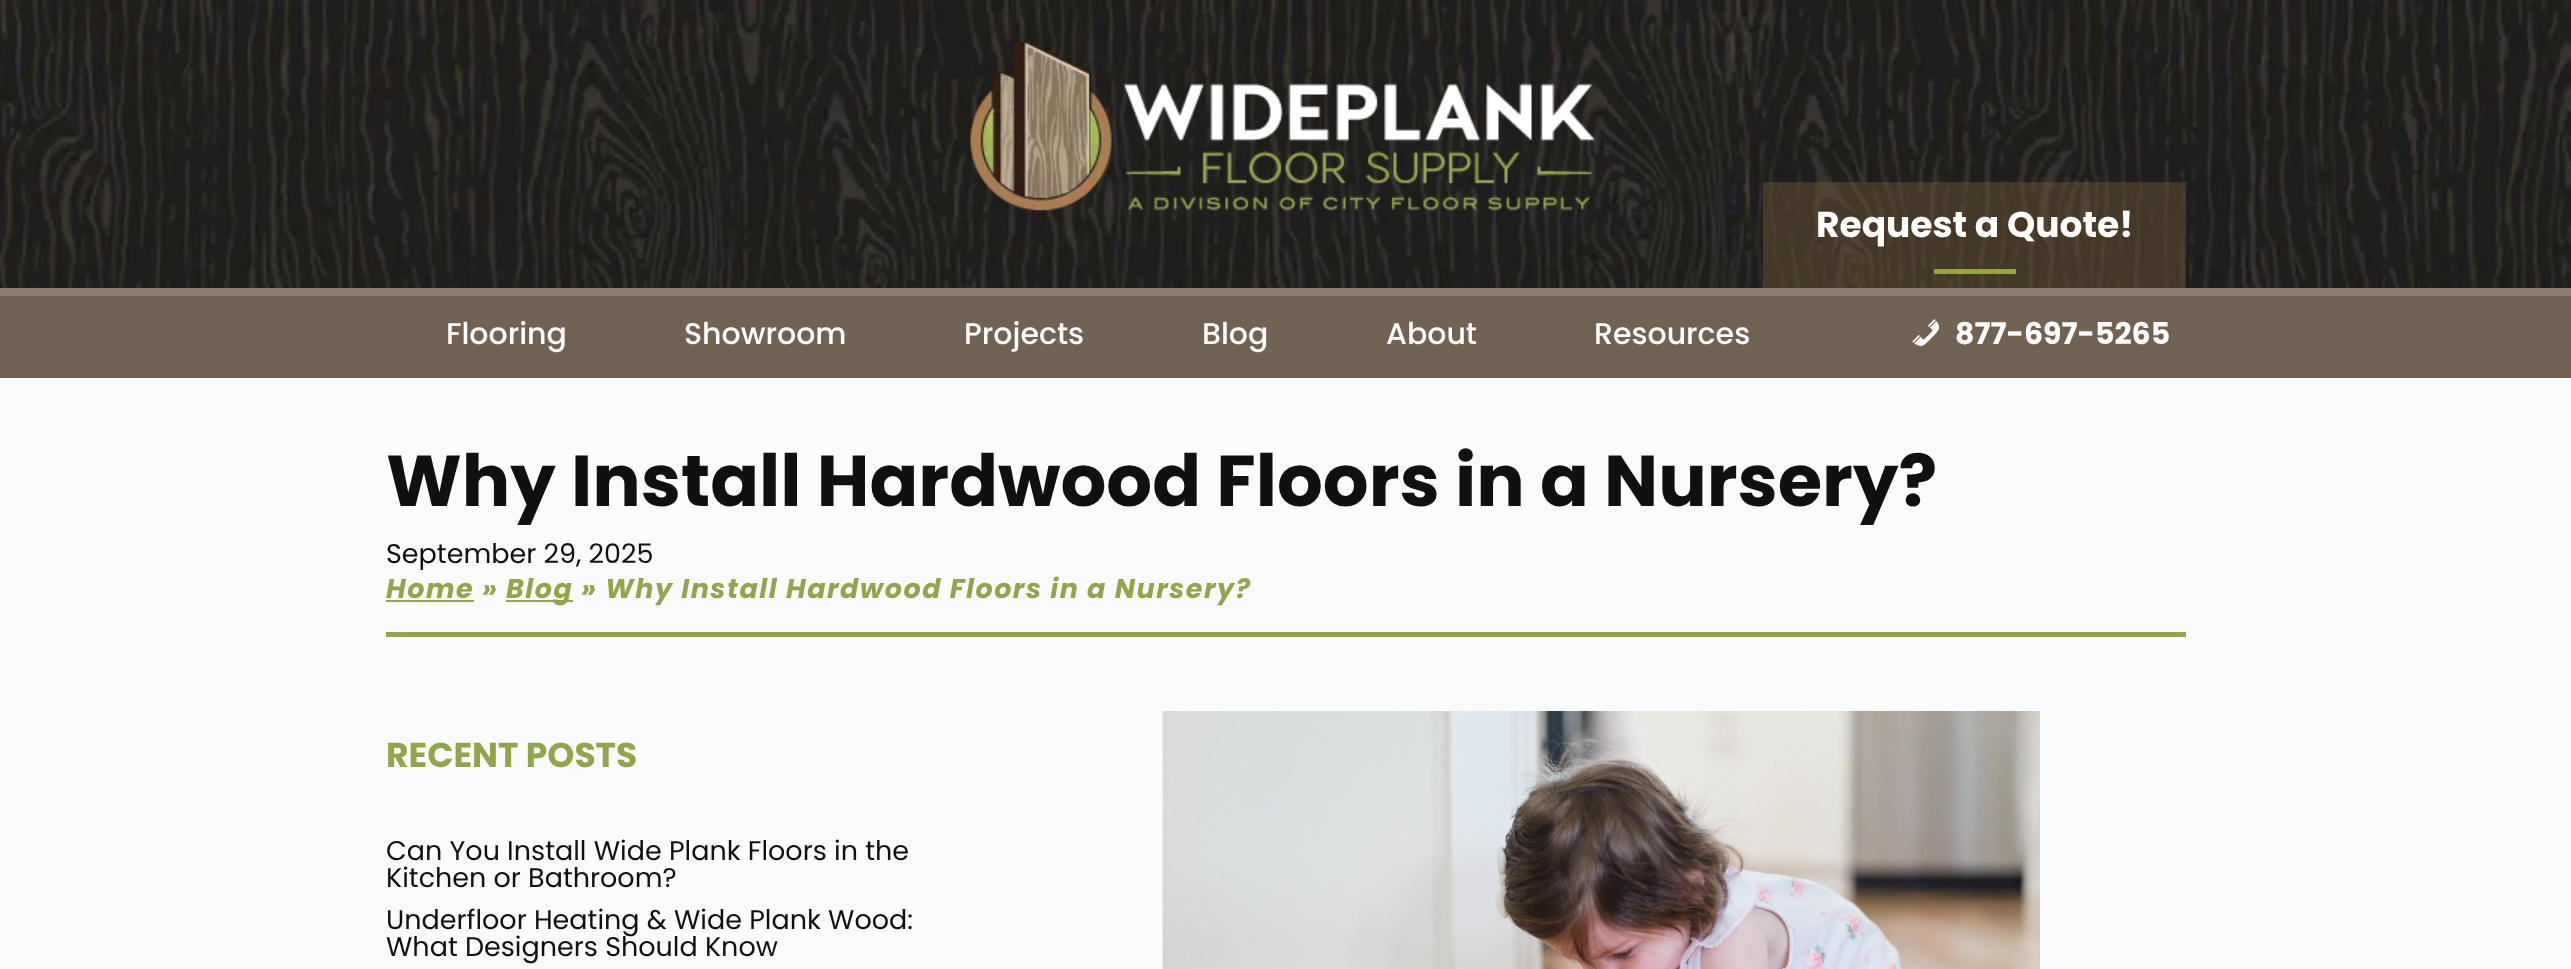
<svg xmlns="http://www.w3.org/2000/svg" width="2571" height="969">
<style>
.a{font:bold 36px Poppins;fill:#fff}
.b{font:500 30px Poppins;fill:#fff}
.c{font:bold 30px Poppins;fill:#fff}
.d{font:bold 72px Poppins;fill:#10100e}
.e{font:27px Poppins;fill:#10100e}
.f{font:italic bold 27px Poppins;letter-spacing:1.5px;fill:#93a54b}
.g{font:bold 34.5px Poppins;fill:#93a54b}
</style>
<rect width="100%" height="100%" fill="#fafbfc"/>
<image href="1.png" x="0" y="0" width="2571" height="288"/>
<path fill="#8b7d6d" d="M0 288h2571v8H0z"/>
<image href="2.png" x="970" y="42" width="625" height="170"/>
<path fill="#795b396b" d="M1763 182h423v106H1763z"/>
<path fill="#94a14d" d="M1934 269h82v5H1934z"/>
<path fill="#726253" d="M0 296h2571v82H0z"/>
<image href="3.png" x="1912" y="319" width="28" height="27"/>
<path fill="#93a54b" d="M386 632h1800v5H386z"/>
<path fill="#94a14d" d="M386 600h88v2H386z"/>
<path fill="#94a14d" d="M506 600h67v2H506z"/>
<image href="4.png" x="1162" y="711" width="878" height="258"/>
<text class="a" x="1816" y="237">Request a Quote!</text>
<text class="b" x="446" y="344">Flooring</text>
<text class="b" x="684" y="344">Showroom</text>
<text class="b" x="964" y="344">Projects</text>
<text class="b" x="1202" y="344">Blog</text>
<text class="b" x="1386" y="344">About</text>
<text class="b" x="1594" y="344">Resources</text>
<text class="c" x="1955" y="344">877-697-5265</text>
<text class="d" x="386" y="506">Why Install Hardwood Floors in a Nursery?</text>
<text class="e" x="386" y="563">September 29, 2025</text>
<text class="f" x="386" y="598">Home »</text>
<text class="f" x="506" y="598">Blog » Why Install Hardwood Floors in a Nursery?</text>
<text class="g" x="386" y="767">RECENT POSTS</text>
<text class="e" x="386" y="860">Can You Install Wide Plank Floors in the</text>
<text class="e" x="386" y="887">Kitchen or Bathroom?</text>
<text class="e" x="386" y="929">Underfloor Heating &amp; Wide Plank Wood:</text>
<text class="e" x="386" y="956">What Designers Should Know</text>
</svg>
